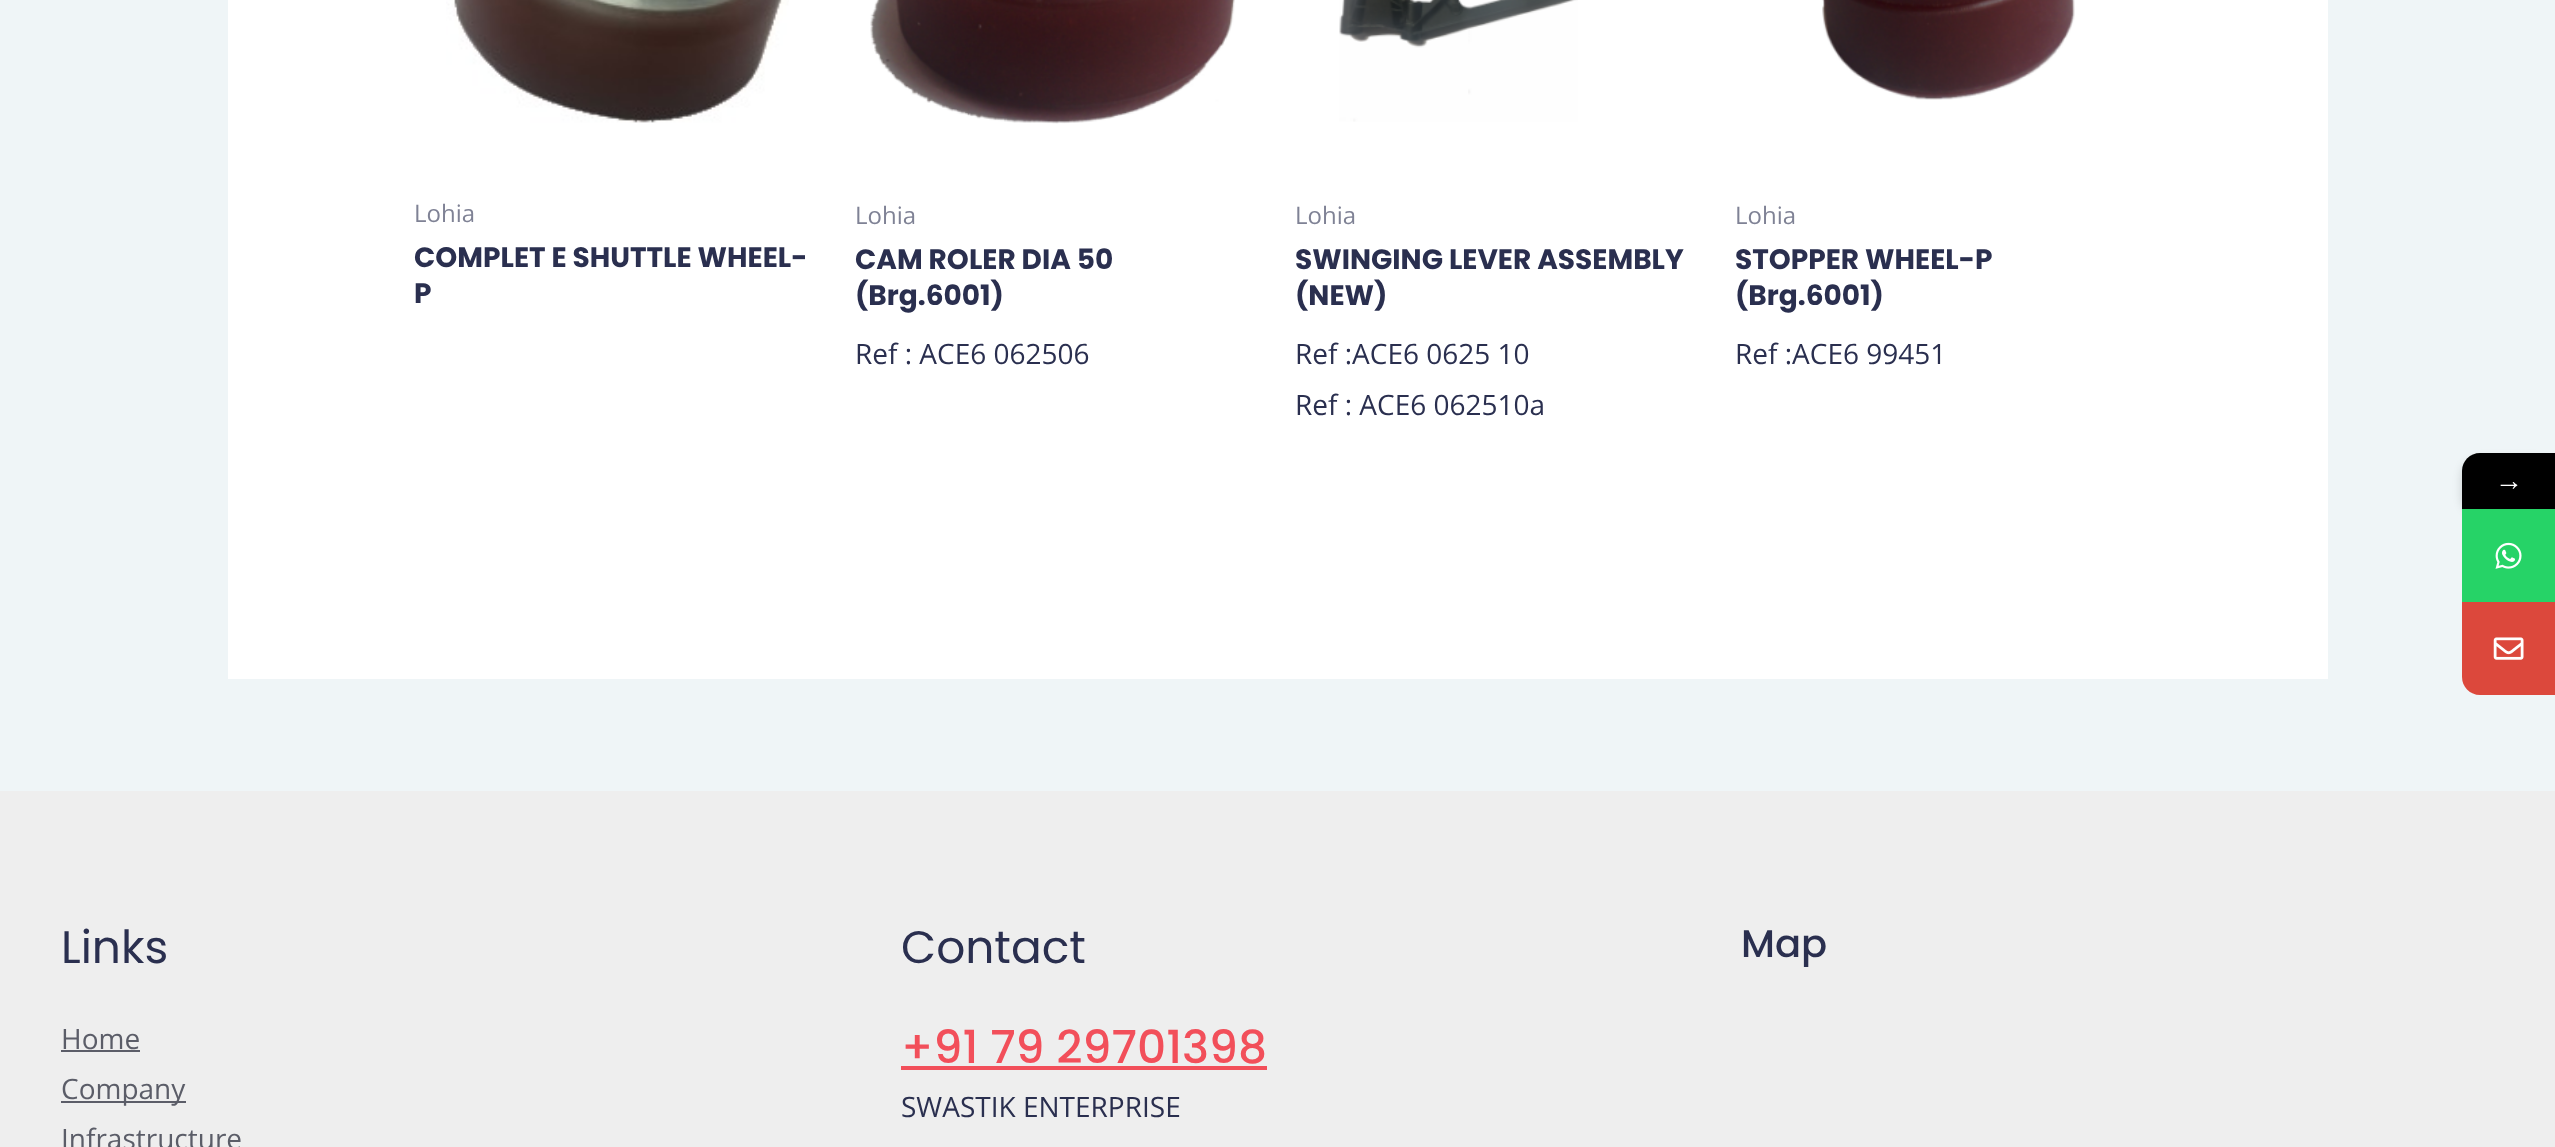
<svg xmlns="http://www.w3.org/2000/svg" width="2555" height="1147">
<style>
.a{font:24px Open Sans;fill:#7f8295}
.b{font:bold 28px Poppins;fill:#2a2f4f}
.c{font:28px Open Sans;fill:#2a2f4f}
.d{font:45.5px Poppins;fill:#2a2f4f}
.e{font:28px Open Sans;fill:#5b5d68}
.f{font:500 45.5px Poppins;fill:#f24f5a}
.g{font:500 38.5px Poppins;fill:#2a2f4f}
.h{font:28px Liberation Serif;fill:#fff}
</style>
<rect width="100%" height="100%" fill="#eff5f7"/>
<path fill="#fff" d="M228 0h2100v679H228z"/>
<image href="1.png" x="446" y="0" width="343" height="123"/>
<image href="2.png" x="870" y="0" width="365" height="124"/>
<image href="3.png" x="1339" y="0" width="239" height="122"/>
<image href="4.png" x="1822" y="0" width="253" height="100"/>
<path fill="#eee" d="M0 791h2555v356H0z"/>
<path fill="#5b5d68" d="M61 1050h79v2H61z"/>
<path fill="#5b5d68" d="M61 1101h125v2H61z"/>
<path fill="#f24f5a" d="M901 1066h366v4H901z"/>
<rect fill="#00000029" filter="blur(5px)" x="2462" y="459" width="93" height="56" rx="18"/>
<path fill="#000" d="M2480 453h75v56h-93v-38c0-10 8-18 18-18z"/>
<path fill="#26d367" d="M2462 509h93v93H2462z"/>
<image href="5.png" x="2495" y="542" width="27" height="27"/>
<path fill="#dc483c" d="M2462 602h93v93h-75c-10 0-18-8-18-18z"/>
<image href="6.png" x="2493" y="637" width="31" height="23"/>
<text class="a" x="414" y="222">Lohia</text>
<text class="b" x="414" y="267">COMPLET E SHUTTLE WHEEL-</text>
<text class="b" x="414" y="303">P</text>
<text class="a" x="855" y="224">Lohia</text>
<text class="b" x="855" y="269">CAM ROLER DIA 50</text>
<text class="b" x="855" y="305">(Brg.6001)</text>
<text class="c" x="855" y="364">Ref : ACE6 062506</text>
<text class="a" x="1295" y="224">Lohia</text>
<text class="b" x="1295" y="269">SWINGING LEVER ASSEMBLY</text>
<text class="b" x="1295" y="305">(NEW)</text>
<text class="c" x="1295" y="364">Ref :ACE6 0625 10</text>
<text class="c" x="1295" y="415">Ref : ACE6 062510a</text>
<text class="a" x="1735" y="224">Lohia</text>
<text class="b" x="1735" y="269">STOPPER WHEEL-P</text>
<text class="b" x="1735" y="305">(Brg.6001)</text>
<text class="c" x="1735" y="364">Ref :ACE6 99451</text>
<text class="d" x="61" y="963">Links</text>
<text class="e" x="61" y="1049">Home</text>
<text class="e" x="61" y="1099">Company</text>
<text class="e" x="61" y="1149">Infrastructure</text>
<text class="d" x="901" y="963">Contact</text>
<text class="f" x="901" y="1063">+91 79 29701398</text>
<text class="c" x="901" y="1117">SWASTIK ENTERPRISE</text>
<text class="g" x="1741" y="957">Map</text>
<text class="h" x="2495" y="490">→</text>
</svg>
